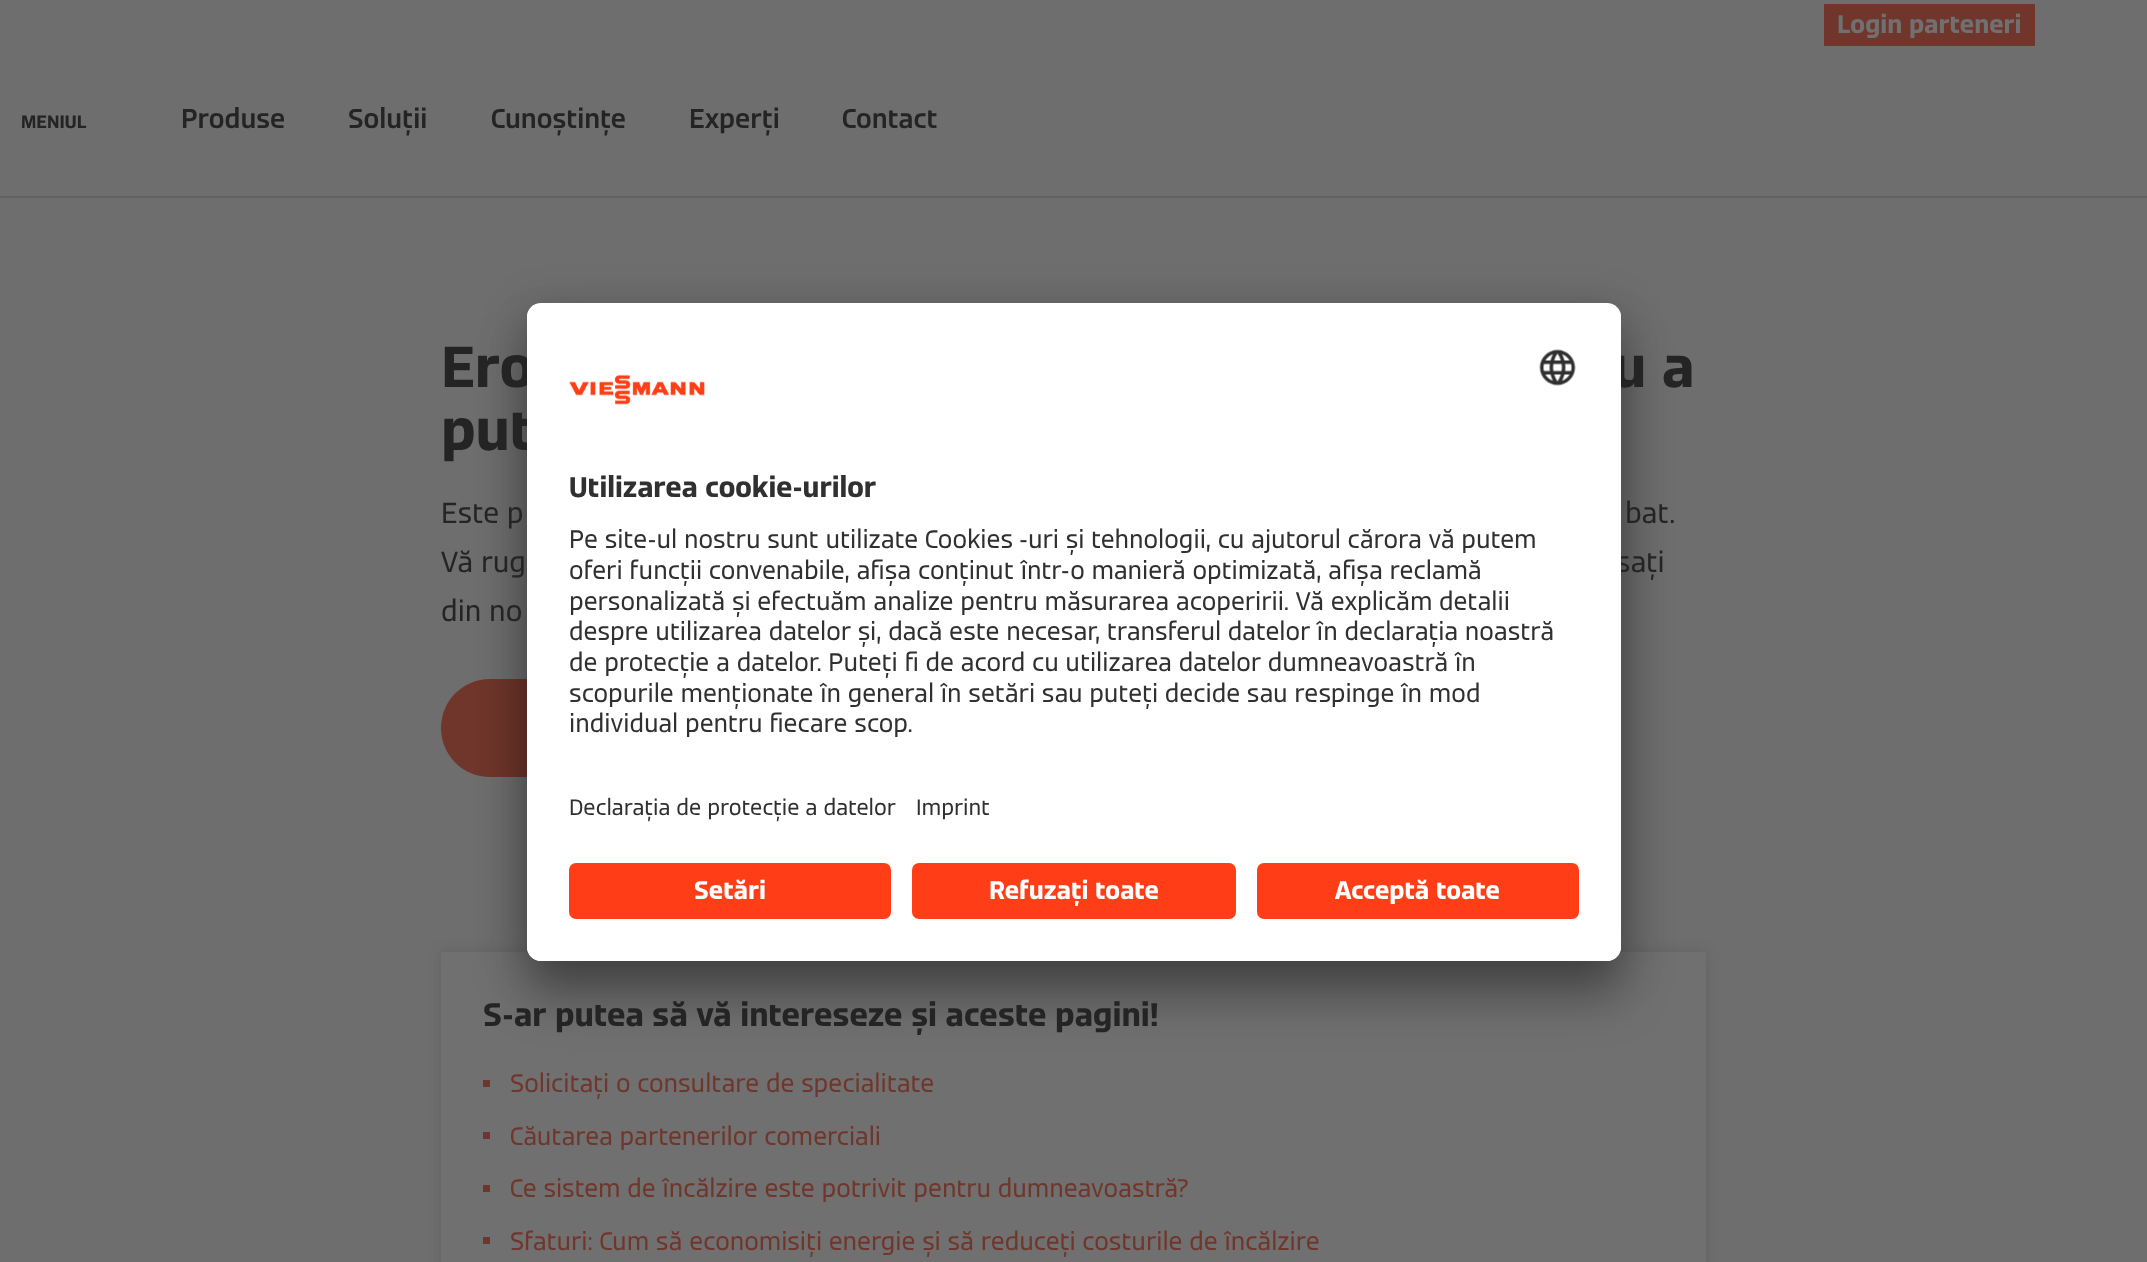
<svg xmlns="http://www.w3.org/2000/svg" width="2147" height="1262">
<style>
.a{font:bold 24.5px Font;fill:#707070}
.b{font:bold 17.5px Font;fill:#242424}
.c{font:600 26.25px Font;fill:#242424}
.d{font:bold 56px Font;fill:#242424}
.e{font:28px Font;fill:#242424}
.f{font:bold 31.5px Font;fill:#242424}
.g{font:24.5px Font;fill:#70362b}
.h{font:bold 27.5px Font;fill:#303030}
.i{font:24.5px Font;fill:#303030}
.j{font:21.5px Font;fill:#303030}
.k{font:bold 24.5px Font;fill:#fff}
</style>
<defs>
<clipPath id="clip1"><rect x="527" y="303" width="1094" height="658" rx="14"/></clipPath>
<clipPath id="clip2"><path d="M541 303h1066c7.5 0 14 6.5 14 14v532h-1094v-532c0-7.5 6.5-14 14-14z"/></clipPath>
</defs>
<rect width="100%" height="100%" fill="#6e6e6e"/>
<path fill="#626262" d="M0 196h2147v2H0z"/>
<path fill="#70362b" d="M1824 4h211v42H1824z"/>
<rect fill="#70362b" x="441" y="679" width="555" height="98" rx="49"/>
<path fill="#24242429" filter="blur(7px)" d="M441 952h1265v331H441z"/>
<path fill="#707070" d="M441 952h1265v310H441z"/>
<path fill="#70362b" d="M483 1080h7v7H483z"/>
<path fill="#70362b" d="M483 1132h7v7H483z"/>
<path fill="#70362b" d="M483 1185h7v7H483z"/>
<path fill="#70362b" d="M483 1237h7v7H483z"/>
<rect fill="#0000004d" filter="blur(24.5px)" x="527" y="338" width="1094" height="658" rx="14"/>
<rect fill="#00000038" filter="blur(23px)" x="527" y="312" width="1094" height="658" rx="14"/>
<text class="a" x="1837" y="33">Login parteneri</text>
<text class="b" x="21" y="128">MENIUL</text>
<text class="c" x="181" y="128">Produse</text>
<text class="c" x="348" y="128">Soluții</text>
<text class="c" x="491" y="128">Cunoștințe</text>
<text class="c" x="689" y="128">Experți</text>
<text class="c" x="842" y="128">Contact</text>
<text class="d" x="441" y="387">Ero</text>
<text class="d" x="1612" y="387">u a</text>
<text class="d" x="441" y="450">put</text>
<text class="e" x="441" y="523">Este p</text>
<text class="e" x="1625" y="523">bat.</text>
<text class="e" x="441" y="572">Vă rug</text>
<text class="e" x="1616" y="572">sați</text>
<text class="e" x="441" y="621">din no</text>
<text class="f" x="483" y="1026">S-ar putea să vă intereseze și aceste pagini!</text>
<text class="g" x="510" y="1092">Solicitați o consultare de specialitate</text>
<text class="g" x="510" y="1145">Căutarea partenerilor comerciali</text>
<text class="g" x="510" y="1197">Ce sistem de încălzire este potrivit pentru dumneavoastră?</text>
<text class="g" x="510" y="1250">Sfaturi: Cum să economisiți energie și să reduceți costurile de încălzire</text>
<rect fill="#fff" x="527" y="303" width="1094" height="658" rx="14"/>
<g clip-path="url(#clip1)">
<g clip-path="url(#clip2)">
<path fill="#fff" d="M527 305h1094v544H527z"/>
</g>
</g>
<image href="1.png" x="1539" y="349" width="37" height="37"/>
<image href="2.png" x="569" y="374" width="136" height="31"/>
<text class="h" x="569" y="497">Utilizarea cookie-urilor</text>
<text class="i" x="569" y="548">Pe site-ul nostru sunt utilizate Cookies -uri și tehnologii, cu ajutorul cărora vă putem</text>
<text class="i" x="569" y="579">oferi funcții convenabile, afișa conținut într-o manieră optimizată, afișa reclamă</text>
<text class="i" x="569" y="610">personalizată și efectuăm analize pentru măsurarea acoperirii. Vă explicăm detalii</text>
<text class="i" x="569" y="640">despre utilizarea datelor și, dacă este necesar, transferul datelor în declarația noastră</text>
<text class="i" x="569" y="671">de protecție a datelor. Puteți fi de acord cu utilizarea datelor dumneavoastră în</text>
<text class="i" x="569" y="702">scopurile menționate în general în setări sau puteți decide sau respinge în mod</text>
<text class="i" x="569" y="732">individual pentru fiecare scop.</text>
<text class="j" x="569" y="815">Declarația de protecție a datelor</text>
<text class="j" x="916" y="815">Imprint</text>
<path fill="#fff" d="M527 849h1094v98c0 7.5-6.5 14-14 14h-1066c-7.5 0-14-6.5-14-14z"/>
<rect fill="#ff3e17" x="569" y="863" width="322" height="56" rx="7"/>
<text class="k" x="694" y="899">Setări</text>
<rect fill="#ff3e17" x="912" y="863" width="324" height="56" rx="7"/>
<text class="k" x="989" y="899">Refuzați toate</text>
<rect fill="#ff3e17" x="1257" y="863" width="322" height="56" rx="7"/>
<text class="k" x="1335" y="899">Acceptă toate</text>
</svg>
